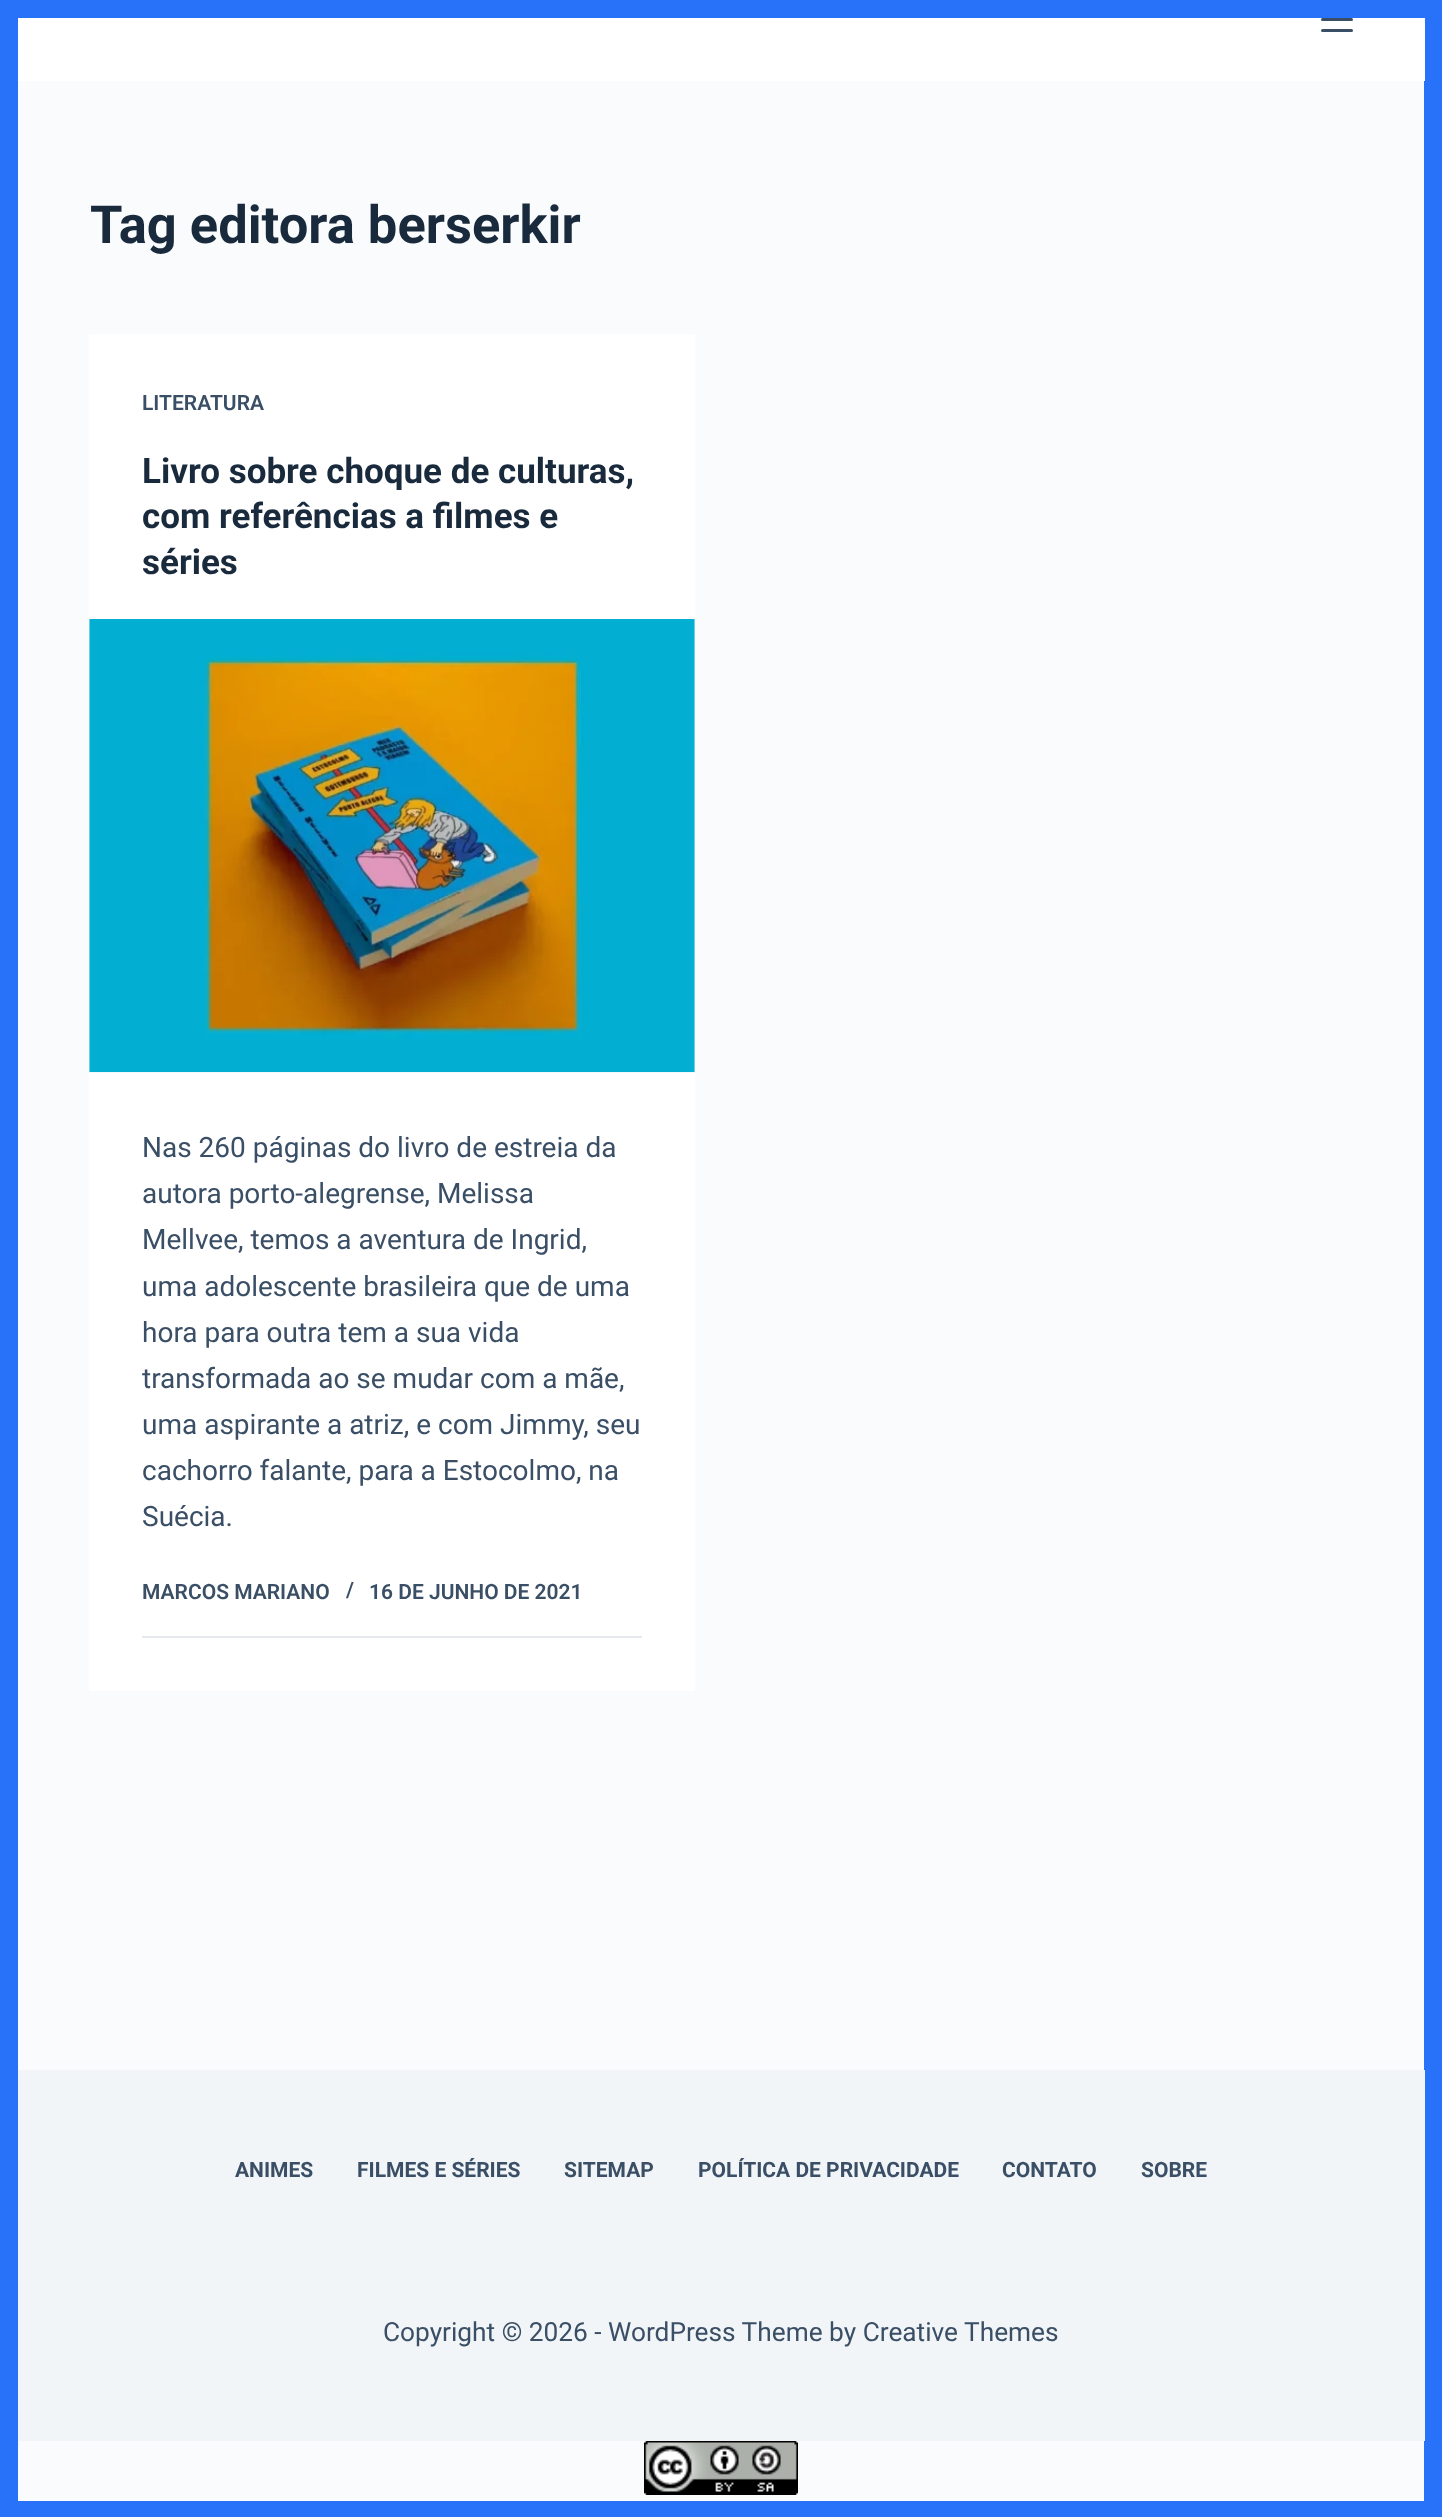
<svg xmlns="http://www.w3.org/2000/svg" width="1442" height="2517">
<style>
.a{font:bold 52.5px Roboto;fill:#192a3d}
.b{font:600 21px Roboto;fill:#3a4f66}
.c{font:bold 35px Roboto;fill:#192a3d}
.d{font:28px Roboto;fill:#3a4f66}
.e{font:bold 21px Roboto;fill:#3a4f66}
.f{font:26.25px Roboto;fill:#3a4f66}
</style>
<rect width="100%" height="100%" fill="#fafbfc"/>
<path fill="none" stroke="#2872fa" stroke-width="18" d="M9 -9h1424v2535H9z"/>
<path fill="#2872fa" d="M18 0h1406v18H18z"/>
<path fill="#fff" d="M18 18h1407v63H18z"/>
<rect fill="#3a4f66" x="1321" y="18" width="32" height="3" rx="1.5"/>
<rect fill="#3a4f66" x="1321" y="29" width="32" height="3" rx="1.5"/>
<path fill="#fff" d="M89 334h606v1357H89z"/>
<image href="1.png" x="89" y="619" width="606" height="454"/>
<path fill="#e6eaef" d="M142 1636h500v2H142z"/>
<path fill="#f2f5f7" d="M18 2070h1407v371H18z"/>
<image href="2.png" x="644" y="2441" width="154" height="54"/>
<path fill="#2872fa" d="M18 2501h1406v16H18z"/>
<text class="a" x="90" y="243">Tag editora berserkir</text>
<text class="b" x="142" y="410">LITERATURA</text>
<text class="c" x="142" y="483">Livro sobre choque de culturas,</text>
<text class="c" x="142" y="528">com referências a filmes e</text>
<text class="c" x="142" y="574">séries</text>
<text class="d" x="142" y="1157">Nas 260 páginas do livro de estreia da</text>
<text class="d" x="142" y="1203">autora porto-alegrense, Melissa</text>
<text class="d" x="142" y="1249">Mellvee, temos a aventura de Ingrid,</text>
<text class="d" x="142" y="1296">uma adolescente brasileira que de uma</text>
<text class="d" x="142" y="1342">hora para outra tem a sua vida</text>
<text class="d" x="142" y="1388">transformada ao se mudar com a mãe,</text>
<text class="d" x="142" y="1434">uma aspirante a atriz, e com Jimmy, seu</text>
<text class="d" x="142" y="1480">cachorro falante, para a Estocolmo, na</text>
<text class="d" x="142" y="1526">Suécia.</text>
<text class="b" x="142" y="1599">MARCOS MARIANO</text>
<text class="b" x="346" y="1597">/</text>
<text class="b" x="369" y="1599">16 DE JUNHO DE 2021</text>
<text class="e" x="235" y="2177">ANIMES</text>
<text class="e" x="357" y="2177">FILMES E SÉRIES</text>
<text class="e" x="564" y="2177">SITEMAP</text>
<text class="e" x="698" y="2177">POLÍTICA DE PRIVACIDADE</text>
<text class="e" x="1002" y="2177">CONTATO</text>
<text class="e" x="1141" y="2177">SOBRE</text>
<text class="f" x="383" y="2341">Copyright © 2026 - WordPress Theme by Creative Themes</text>
</svg>
